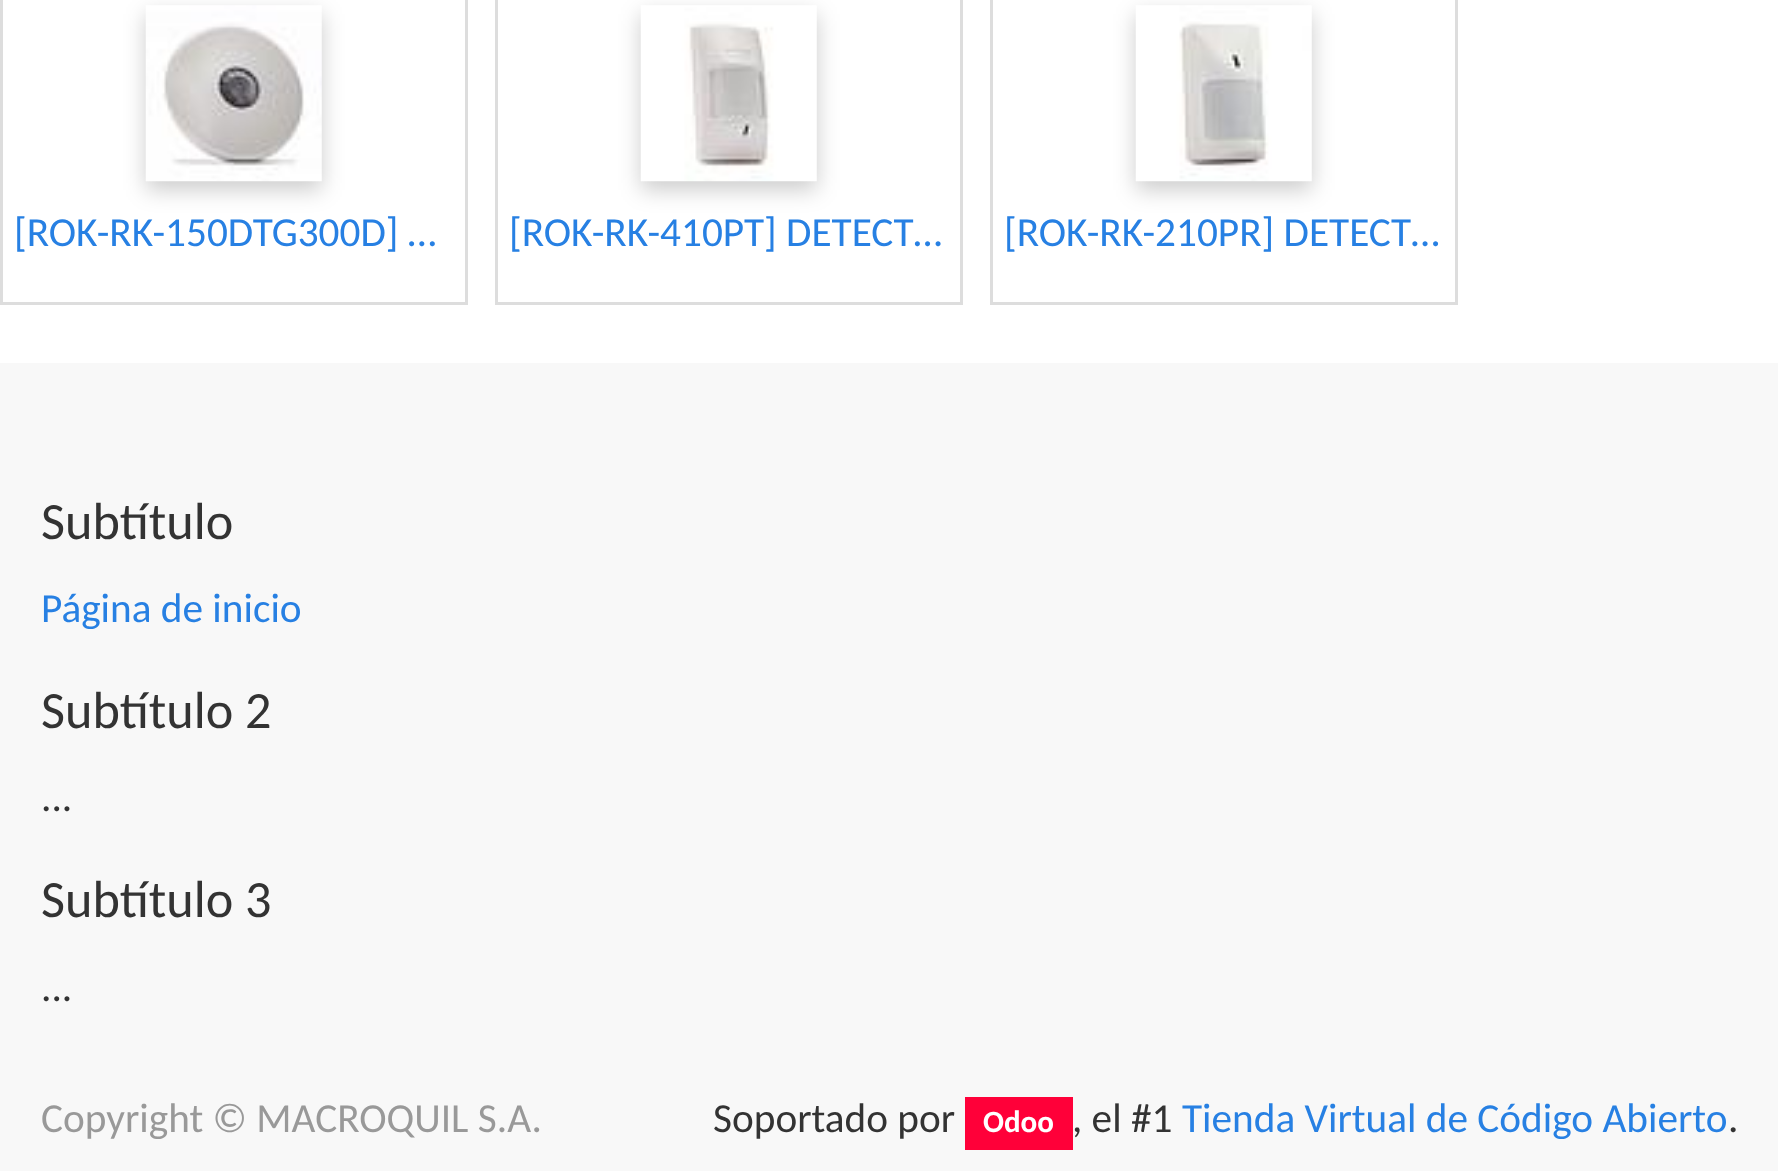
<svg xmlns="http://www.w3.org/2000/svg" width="1778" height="1171">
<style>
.a{font:41.25px Carlito;fill:#2780e3}
.b{font:52.25px Carlito;fill:#333}
.c{font:41.25px Carlito;fill:#333}
.d{font:41.25px Carlito;fill:#999}
.e{font:bold 31px Carlito;fill:#fff}
</style>
<rect width="100%" height="100%" fill="#fff"/>
<path fill="none" stroke="#ddd" stroke-width="3" d="M1.5 -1.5h465v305H1.5z"/>
<path fill="#00000033" filter="blur(11px)" d="M146 14h176v176H146z"/>
<image href="1.png" x="145" y="5" width="177" height="177"/>
<path fill="none" stroke="#ddd" stroke-width="3" d="M496.5 -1.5h465v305H496.5z"/>
<path fill="#00000033" filter="blur(11px)" d="M641 14h176v176H641z"/>
<image href="2.png" x="640" y="5" width="177" height="177"/>
<path fill="none" stroke="#ddd" stroke-width="3" d="M991.5 -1.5h465v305H991.5z"/>
<path fill="#00000033" filter="blur(11px)" d="M1136 14h176v176H1136z"/>
<image href="3.png" x="1135" y="5" width="177" height="177"/>
<path fill="#f8f8f8" d="M0 363h1778v808H0z"/>
<path fill="#ff0039" d="M965 1097h108v53H965z"/>
<text class="a" x="14" y="246">[ROK-RK-150DTG300D] …</text>
<text class="a" x="509" y="246">[ROK-RK-410PT] DETECT…</text>
<text class="a" x="1004" y="246">[ROK-RK-210PR] DETECT…</text>
<text class="b" x="41" y="539">Subtítulo</text>
<text class="a" x="41" y="622">Página de inicio</text>
<text class="b" x="41" y="728">Subtítulo 2</text>
<text class="c" x="41" y="811">...</text>
<text class="b" x="41" y="917">Subtítulo 3</text>
<text class="c" x="41" y="1001">...</text>
<text class="d" x="41" y="1132">Copyright © MACROQUIL S.A.</text>
<text class="c" x="713" y="1132">Soportado por</text>
<text class="e" x="983" y="1132">Odoo</text>
<text class="c" x="1072" y="1132">, el #1</text>
<text class="a" x="1182" y="1132">Tienda Virtual de Código Abierto</text>
<text class="c" x="1728" y="1132">.</text>
</svg>
